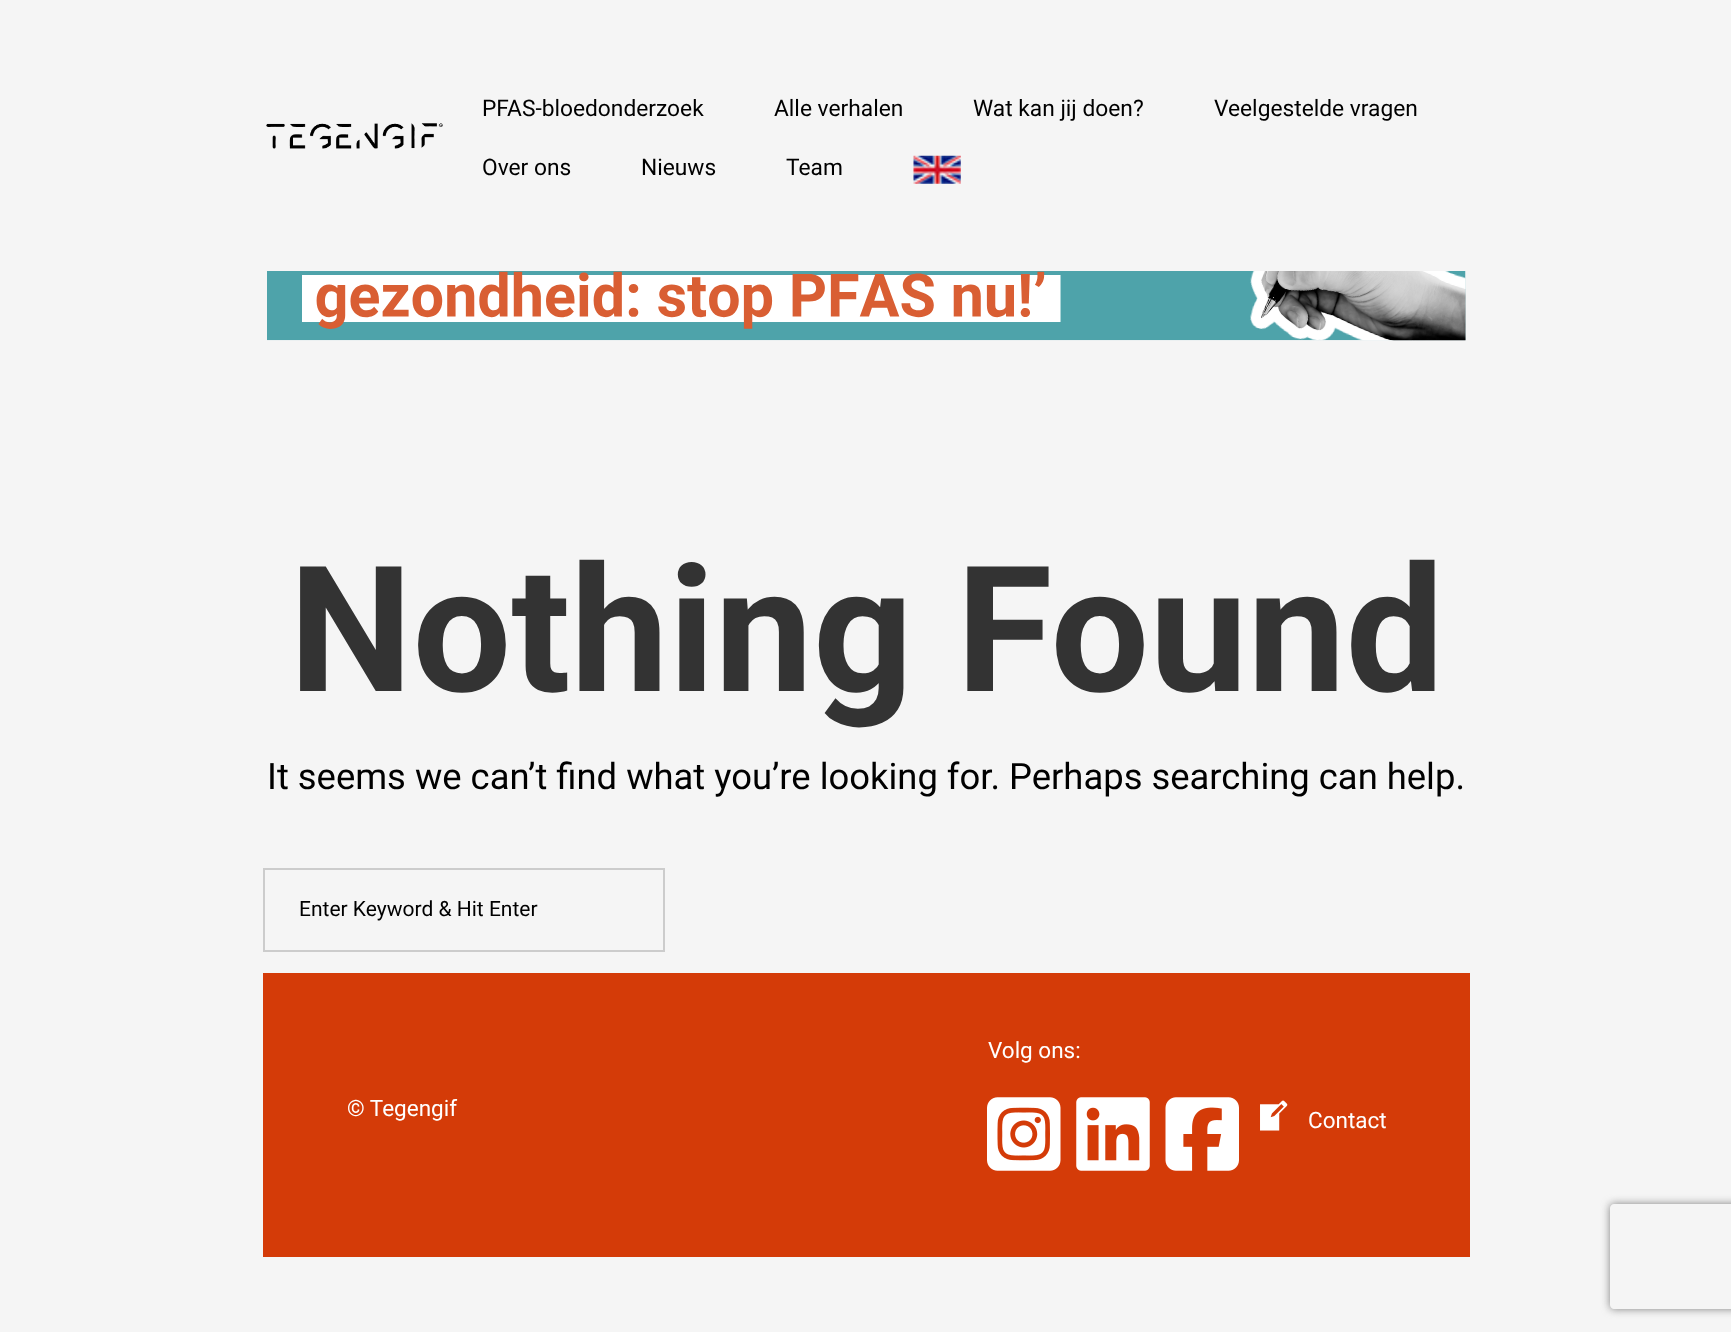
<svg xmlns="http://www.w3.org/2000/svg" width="1731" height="1332">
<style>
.a{font:22.75px Roboto;fill:#000}
.b{font:bold 175px Roboto;fill:#333}
.c{font:36.4px Roboto;fill:#000}
.d{font:21px Roboto;fill:#000}
.e{font:22.5px Roboto;fill:#fff}
</style>
<defs>
<clipPath id="clip1"><path d="M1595 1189h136v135h-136zm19 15h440c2 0 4 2 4 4v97c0 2-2 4-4 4h-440c-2 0-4-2-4-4v-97c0-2 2-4 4-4z" clip-rule="evenodd"/></clipPath>
</defs>
<rect width="100%" height="100%" fill="#f5f5f5"/>
<image href="1.png" x="266" y="123" width="177" height="26"/>
<image href="2.png" x="913" y="155" width="48" height="29"/>
<image href="3.png" x="267" y="271" width="1199" height="70"/>
<path fill="none" stroke="#ccc" stroke-width="2" d="M264 869h400v82H264z"/>
<path fill="#d43b08" d="M263 973h1207v284H263z"/>
<image href="4.png" x="987" y="1097" width="74" height="74"/>
<image href="5.png" x="1076" y="1097" width="74" height="74"/>
<image href="6.png" x="1165" y="1097" width="74" height="74"/>
<image href="7.png" x="1260" y="1100" width="28" height="31"/>
<g clip-path="url(#clip1)">
<rect fill="#808080" filter="blur(4.5px)" x="1610" y="1204" width="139" height="105" rx="4"/>
</g>
<text class="a" x="482" y="116">PFAS-bloedonderzoek</text>
<text class="a" x="774" y="116">Alle verhalen</text>
<text class="a" x="973" y="116">Wat kan jij doen?</text>
<text class="a" x="1214" y="116">Veelgestelde vragen</text>
<text class="a" x="482" y="175">Over ons</text>
<text class="a" x="641" y="175">Nieuws</text>
<text class="a" x="786" y="175">Team</text>
<text class="b" x="289" y="691">Nothing Found</text>
<text class="c" x="267" y="789">It seems we can’t find what you’re looking for. Perhaps searching can help.</text>
<text class="d" x="299" y="916">Enter Keyword &amp; Hit Enter</text>
<text class="e" x="347" y="1116">© Tegengif</text>
<text class="e" x="988" y="1058">Volg ons:</text>
<text class="e" x="1308" y="1128">Contact</text>
</svg>
